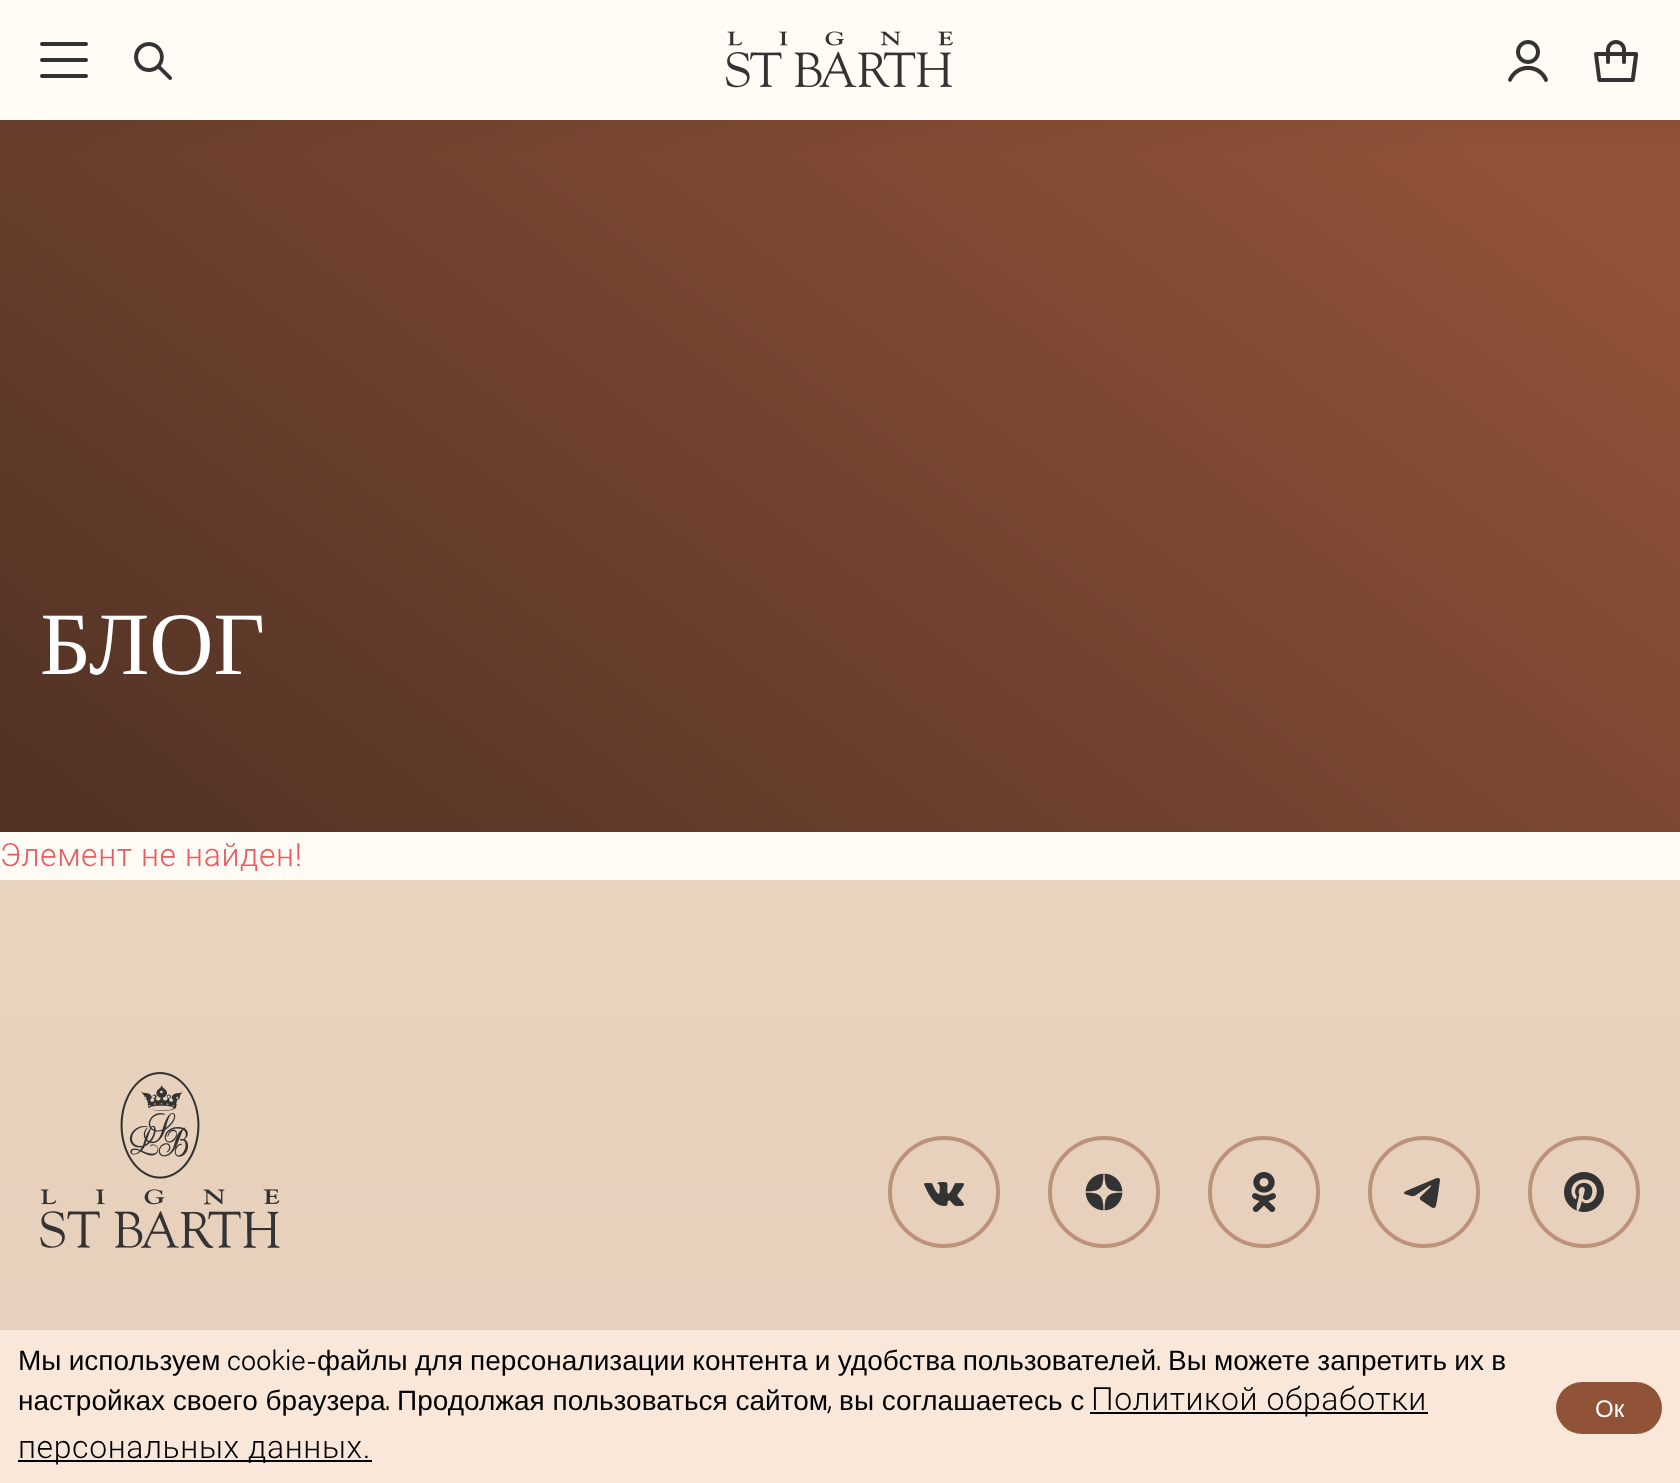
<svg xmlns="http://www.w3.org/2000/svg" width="1680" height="1483">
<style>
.a{font:89px Liberation Serif;fill:#fff}
.b{font:300 32px Roboto;letter-spacing:0.6px;fill:#ec5a5e}
.c{font:28px Liberation Sans;fill:#000}
.d{font:300 28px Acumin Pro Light;fill:#000}
.e{font:300 32px Roboto;letter-spacing:0.6px;fill:#000}
.f{font:24px Liberation Sans;fill:#fff}
</style>
<defs>
<linearGradient id="g1" gradientUnits="userSpaceOnUse" x1="840" y1="-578" x2="840" y2="832"><stop offset="0.01" stop-color="#31211b"/><stop offset="0.52" stop-color="#905238"/></linearGradient>
<linearGradient id="g2" gradientUnits="userSpaceOnUse" x1="197" y1="980" x2="1483" y2="-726"><stop offset="0" stop-color="#111" stop-opacity="0.5"/><stop offset="0.67" stop-color="#111" stop-opacity="0"/></linearGradient>
<linearGradient id="g3" gradientUnits="userSpaceOnUse" x1="840" y1="880" x2="840" y2="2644"><stop offset="0" stop-color="#e9d4bf"/><stop offset="1" stop-color="#dfc2b3"/></linearGradient>
</defs>
<rect width="100%" height="100%" fill="#fffbf5"/>
<path fill="url(#g1)" d="M0 120h1680v712H0z"/>
<path fill="url(#g2)" d="M0 120h1680v712H0z"/>
<path fill="url(#g3)" d="M0 880h1680v450H0z"/>
<image href="1.png" x="40" y="1072" width="240" height="176"/>
<circle fill="none" stroke="#bc927a" stroke-width="4" cx="944" cy="1192" r="54"/>
<image href="2.png" x="924" y="1182" width="40" height="24"/>
<circle fill="none" stroke="#bc927a" stroke-width="4" cx="1104" cy="1192" r="54"/>
<image href="3.png" x="1085" y="1173" width="38" height="38"/>
<circle fill="none" stroke="#bc927a" stroke-width="4" cx="1264" cy="1192" r="54"/>
<image href="4.png" x="1252" y="1172" width="24" height="40"/>
<circle fill="none" stroke="#bc927a" stroke-width="4" cx="1424" cy="1192" r="54"/>
<image href="5.png" x="1404" y="1178" width="36" height="30"/>
<circle fill="none" stroke="#bc927a" stroke-width="4" cx="1584" cy="1192" r="54"/>
<image href="6.png" x="1564" y="1172" width="40" height="40"/>
<path fill="none" stroke="#333" stroke-width="4" stroke-linecap="round" d="M42 44h44m-44 16h44m-44 16h44"/>
<image href="7.png" x="134" y="42" width="38" height="38"/>
<image href="8.png" x="726" y="31" width="227" height="57"/>
<image href="9.png" x="1508" y="40" width="40" height="42"/>
<image href="10.png" x="1594" y="40" width="44" height="42"/>
<path fill="#f9e7da" d="M0 1330h1680v153H0z"/>
<path fill="#000" d="M1090 1412h338v2H1090z"/>
<path fill="#000" d="M18 1460h354v2H18z"/>
<rect fill="#905337" x="1556" y="1382" width="106" height="52" rx="26"/>
<text class="a" x="40" y="674">БЛОГ</text>
<text class="b" x="0" y="866">Элемент не найден!</text>
<text class="c" x="18" y="1370" word-spacing="-0.5">Мы используем</text>
<text class="d" x="227" y="1370">cookie-</text>
<text class="c" x="317" y="1370" word-spacing="-0.5">файлы для персонализации контента и удобства пользователей</text>
<text class="d" x="1156" y="1370">.</text>
<text class="c" x="1168" y="1370" word-spacing="-0.5">Вы можете запретить их в</text>
<text class="c" x="18" y="1410">настройках своего браузера</text>
<text class="d" x="385" y="1410">.</text>
<text class="c" x="397" y="1410">Продолжая пользоваться сайтом</text>
<text class="d" x="827" y="1410">,</text>
<text class="c" x="839" y="1410">вы соглашаетесь с</text>
<text class="e" x="1091" y="1410">Политикой обработки</text>
<text class="e" x="18" y="1458">персональных данных.</text>
<text class="f" x="1595" y="1417">Ок</text>
</svg>
